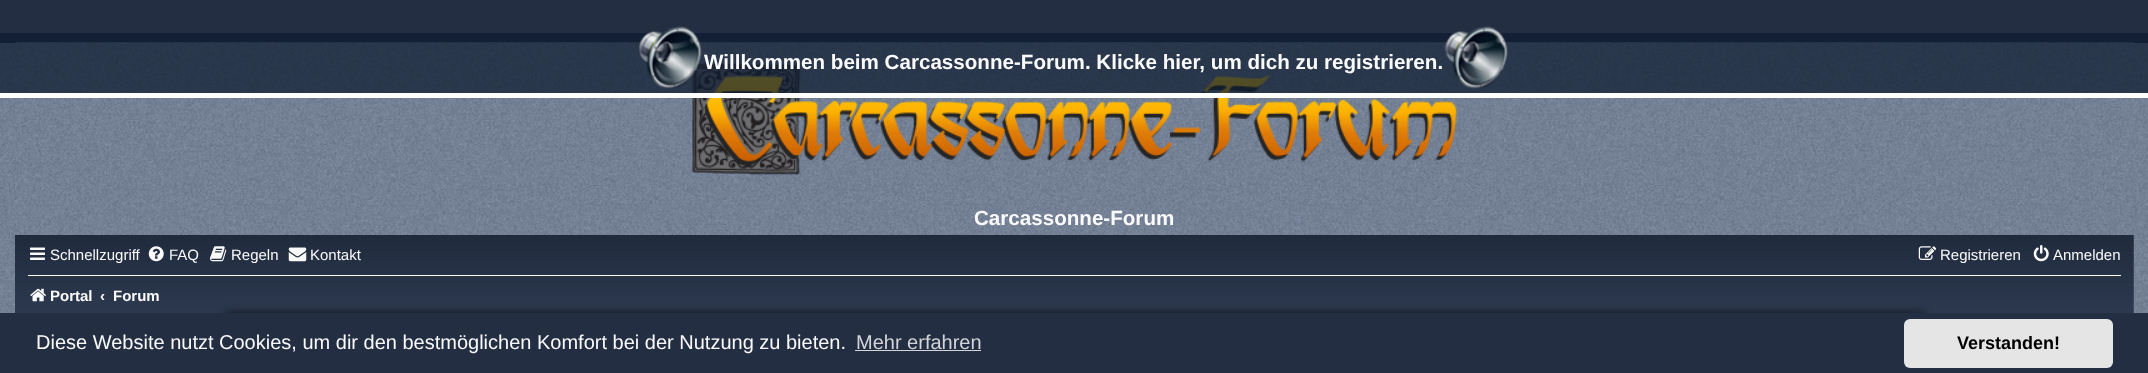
<svg xmlns="http://www.w3.org/2000/svg" width="2148" height="373">
<style>
.a{font:bold 20.6px Liberation Sans;fill:#fafafa}
.b{font:15px Liberation Sans;fill:#fafafa}
.c{font:bold 15px Liberation Sans;fill:#fafafa}
.d{font:20px Liberation Sans;fill:#fafafa}
.e{font:20px Liberation Sans;fill:#d3d5d9}
.f{font:bold 18px Liberation Sans;fill:#000}
</style>
<rect width="100%" height="100%" fill="#fff"/>
<image href="1.png" x="0" y="43" width="2148" height="270"/>
<path fill="#232e42" d="M0 0h2148v43H0z"/>
<image href="4.png" x="15" y="42" width="2119" height="271"/>
<image href="5.png" x="15" y="42" width="2119" height="194"/>
<image href="6.png" x="692" y="63" width="765" height="113"/>
<path fill="#0c1a2fb8" d="M0 33h2148v60H0z"/>
<path fill="#fff" d="M0 93h2148v5H0z"/>
<image href="2.png" x="639" y="26" width="63" height="63"/>
<image href="3.png" x="1444" y="26" width="64" height="63"/>
<image href="7.png" x="15" y="235" width="2119" height="78"/>
<image href="8.png" x="30" y="247" width="15" height="13"/>
<image href="9.png" x="148" y="246" width="16" height="16"/>
<image href="10.png" x="210" y="246" width="17" height="16"/>
<image href="11.png" x="288" y="247" width="19" height="15"/>
<image href="12.png" x="1918" y="246" width="19" height="14"/>
<image href="13.png" x="2033" y="245" width="16" height="17"/>
<path fill="#fff" d="M28 275h2093v1H28z"/>
<image href="14.png" x="30" y="288" width="16" height="14"/>
<path fill="#020202b3" filter="blur(4px)" d="M225 313h1699v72H225z"/>
<path fill="#232e42" d="M0 313h2148v60H0z"/>
<path fill="#d3d5d9" d="M855 350h126v1H855z"/>
<rect fill="#e5e5e5" x="1904" y="319" width="209" height="49" rx="6"/>
<text class="a" x="704" y="69">Willkommen beim Carcassonne-Forum. Klicke hier, um dich zu registrieren.</text>
<text class="a" x="974" y="225">Carcassonne-Forum</text>
<text class="b" x="50" y="260">Schnellzugriff</text>
<text class="b" x="169" y="260">FAQ</text>
<text class="b" x="231" y="260">Regeln</text>
<text class="b" x="310" y="260">Kontakt</text>
<text class="b" x="1940" y="260">Registrieren</text>
<text class="b" x="2053" y="260">Anmelden</text>
<text class="c" x="50" y="301">Portal</text>
<text class="c" x="100" y="301">‹</text>
<text class="c" x="113" y="301">Forum</text>
<text class="d" x="36" y="349">Diese Website nutzt Cookies, um dir den bestmöglichen Komfort bei der Nutzung zu bieten.</text>
<text class="e" x="856" y="349">Mehr erfahren</text>
<text class="f" x="1957" y="349">Verstanden!</text>
</svg>
